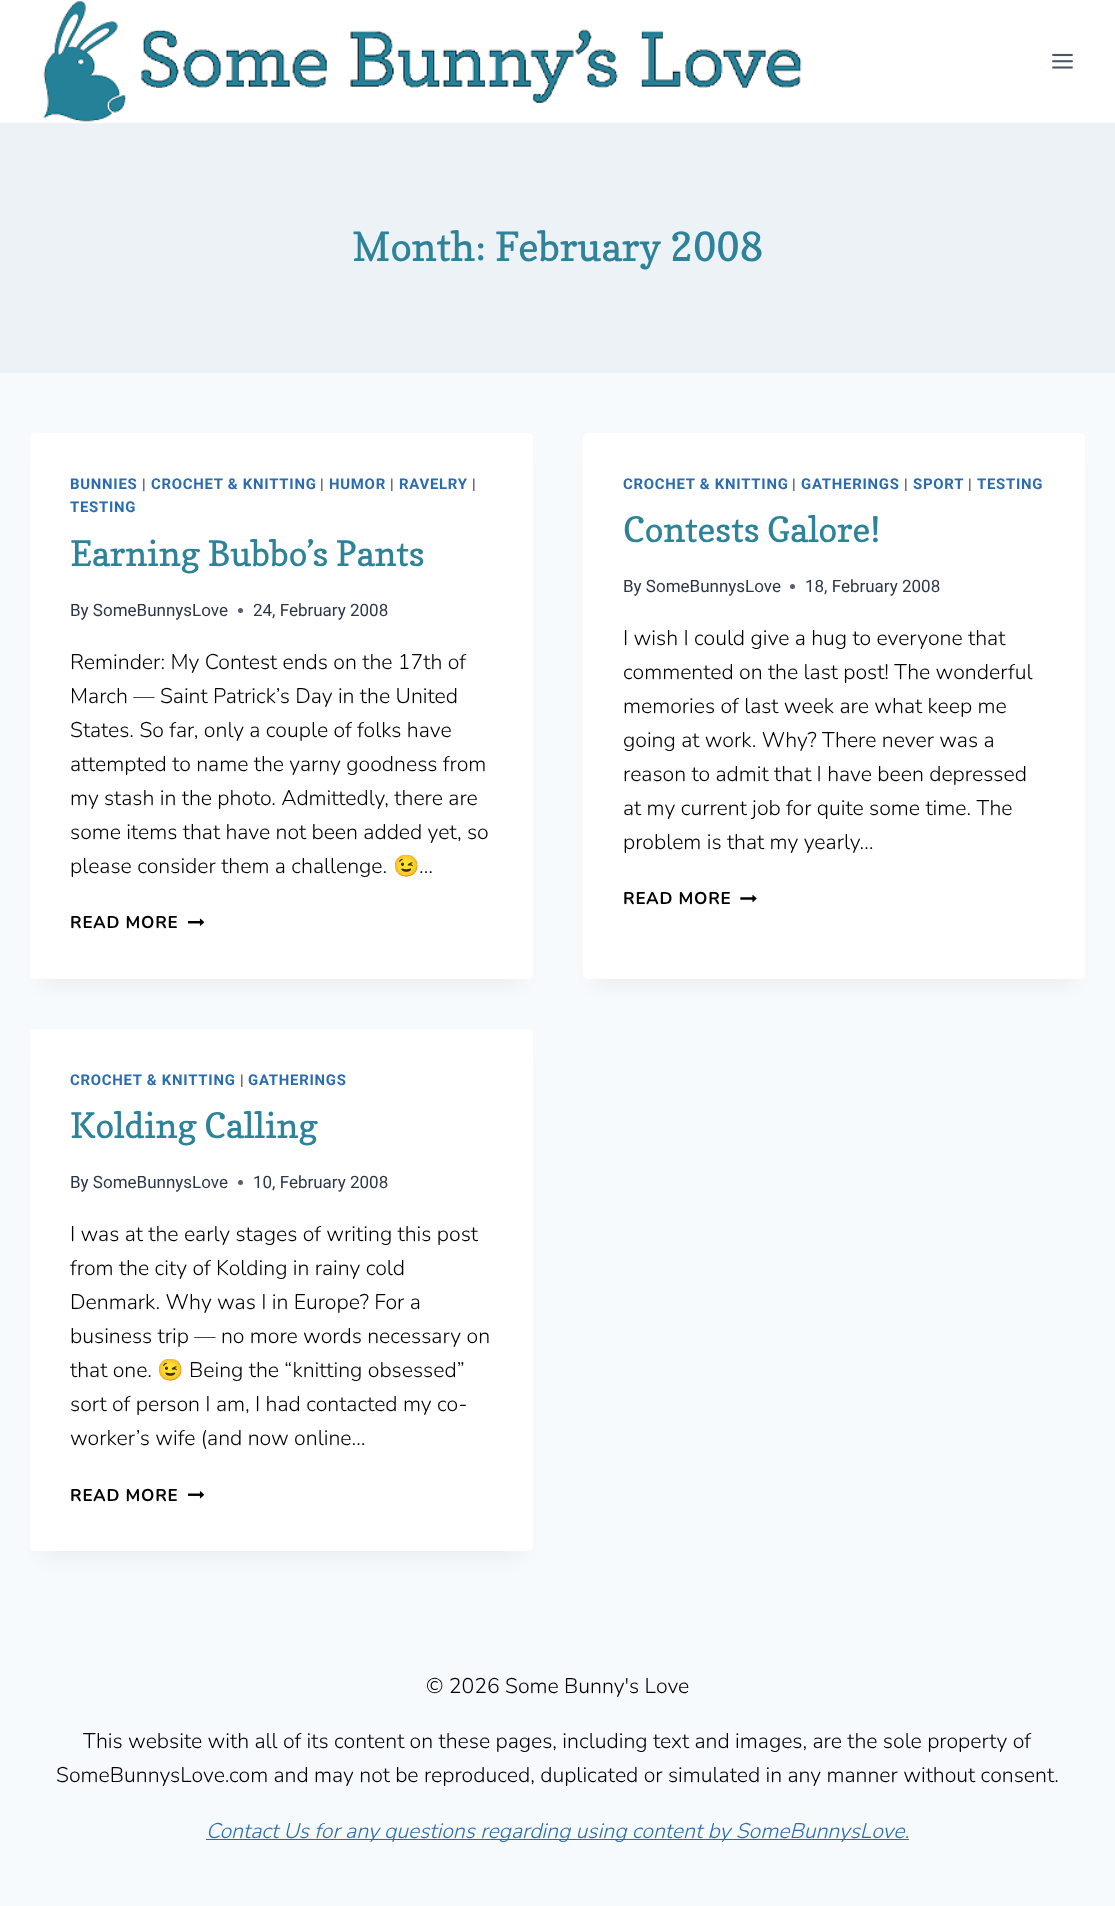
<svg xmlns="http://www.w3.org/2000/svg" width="1115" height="1906">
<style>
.a{font:40px Copse;fill:#2e8299}
.b{font:bold 14.9px Roboto;letter-spacing:0.75px;fill:#2b6cb0}
.c{font:14.9px Roboto;letter-spacing:0.75px;fill:#2d3748}
.d{font:35px Copse;fill:#2e8299}
.e{font:17px Roboto;fill:#2d3748}
.f{font:300 21.25px Nunito;fill:#000}
.g{font:21.25px Noto Color Emoji;fill:#000}
.h{font:bold 17px Nunito;letter-spacing:0.75px;fill:#000}
.i{font:italic 300 21.25px Nunito;fill:#2b6cb0}
</style>
<rect width="100%" height="100%" fill="#f7fafc"/>
<path fill="#fff" d="M0 0h1115v123H0z"/>
<image href="1.png" x="43" y="1" width="759" height="121"/>
<image href="2.png" x="1052" y="53" width="21" height="16"/>
<path fill="#edf2f7" d="M0 123h1115v250H0z"/>
<path fill="#0000000d" filter="blur(9.5px)" d="M43 464h477v521H43z"/>
<rect fill="#fff" x="30" y="433" width="503" height="546" rx="5"/>
<circle fill="#575f6d" cx="240.5" cy="610.5" r="2.5"/>
<image href="3.png" x="188" y="918" width="17" height="8"/>
<path fill="#0000000d" filter="blur(9.5px)" d="M595 464h478v521H595z"/>
<rect fill="#fff" x="583" y="433" width="502" height="546" rx="5"/>
<circle fill="#575f6d" cx="792.5" cy="586.5" r="2.5"/>
<image href="4.png" x="740" y="894" width="17" height="9"/>
<path fill="#0000000d" filter="blur(9.5px)" d="M43 1060h477v498H43z"/>
<rect fill="#fff" x="30" y="1029" width="503" height="522" rx="5"/>
<circle fill="#575f6d" cx="240.5" cy="1182.5" r="2.5"/>
<image href="5.png" x="188" y="1491" width="17" height="8"/>
<path fill="#2b6cb0" d="M206 1839h703v1H206z"/>
<text class="a" x="352" y="261">Month: February 2008</text>
<text class="b" x="70" y="489">BUNNIES</text>
<text class="c" x="142" y="489">|</text>
<text class="b" x="151" y="489">CROCHET &amp; KNITTING</text>
<text class="c" x="320" y="489">|</text>
<text class="b" x="329" y="489">HUMOR</text>
<text class="c" x="390" y="489">|</text>
<text class="b" x="399" y="489">RAVELRY</text>
<text class="c" x="472" y="489">|</text>
<text class="b" x="70" y="512">TESTING</text>
<text class="d" x="70" y="566">Earning Bubbo’s Pants</text>
<text class="e" x="70" y="616">By SomeBunnysLove</text>
<text class="e" x="253" y="616">24, February 2008</text>
<text class="f" x="70" y="669">Reminder: My Contest ends on the 17th of</text>
<text class="f" x="70" y="703">March — Saint Patrick’s Day in the United</text>
<text class="f" x="70" y="737">States. So far, only a couple of folks have</text>
<text class="f" x="70" y="771">attempted to name the yarny goodness from</text>
<text class="f" x="70" y="805">my stash in the photo. Admittedly, there are</text>
<text class="f" x="70" y="839">some items that have not been added yet, so</text>
<text class="f" x="70" y="873">please consider them a challenge.</text>
<text class="g" x="393" y="873">😉</text>
<text class="f" x="419" y="873">…</text>
<text class="h" x="70" y="928">READ MORE</text>
<text class="b" x="623" y="489">CROCHET &amp; KNITTING</text>
<text class="c" x="792" y="489">|</text>
<text class="b" x="801" y="489">GATHERINGS</text>
<text class="c" x="904" y="489">|</text>
<text class="b" x="913" y="489">SPORT</text>
<text class="c" x="968" y="489">|</text>
<text class="b" x="977" y="489">TESTING</text>
<text class="d" x="623" y="542">Contests Galore!</text>
<text class="e" x="623" y="592">By SomeBunnysLove</text>
<text class="e" x="805" y="592">18, February 2008</text>
<text class="f" x="623" y="645">I wish I could give a hug to everyone that</text>
<text class="f" x="623" y="679">commented on the last post! The wonderful</text>
<text class="f" x="623" y="713">memories of last week are what keep me</text>
<text class="f" x="623" y="747">going at work. Why? There never was a</text>
<text class="f" x="623" y="781">reason to admit that I have been depressed</text>
<text class="f" x="623" y="815">at my current job for quite some time. The</text>
<text class="f" x="623" y="849">problem is that my yearly…</text>
<text class="h" x="623" y="904">READ MORE</text>
<text class="b" x="70" y="1085">CROCHET &amp; KNITTING</text>
<text class="c" x="240" y="1085">|</text>
<text class="b" x="248" y="1085">GATHERINGS</text>
<text class="d" x="70" y="1138">Kolding Calling</text>
<text class="e" x="70" y="1188">By SomeBunnysLove</text>
<text class="e" x="253" y="1188">10, February 2008</text>
<text class="f" x="70" y="1241">I was at the early stages of writing this post</text>
<text class="f" x="70" y="1275">from the city of Kolding in rainy cold</text>
<text class="f" x="70" y="1309">Denmark. Why was I in Europe? For a</text>
<text class="f" x="70" y="1343">business trip — no more words necessary on</text>
<text class="f" x="70" y="1377">that one.</text>
<text class="g" x="157" y="1377">😉</text>
<text class="f" x="189" y="1377">Being the “knitting obsessed”</text>
<text class="f" x="70" y="1411">sort of person I am, I had contacted my co-</text>
<text class="f" x="70" y="1445">worker’s wife (and now online…</text>
<text class="h" x="70" y="1501">READ MORE</text>
<text class="f" x="426" y="1693">© 2026 Some Bunny's Love</text>
<text class="f" x="83" y="1748">This website with all of its content on these pages, including text and images, are the sole property of</text>
<text class="f" x="56" y="1782">SomeBunnysLove.com and may not be reproduced, duplicated or simulated in any manner without consent.</text>
<text class="i" x="206" y="1838">Contact Us for any questions regarding using content by SomeBunnysLove.</text>
</svg>
